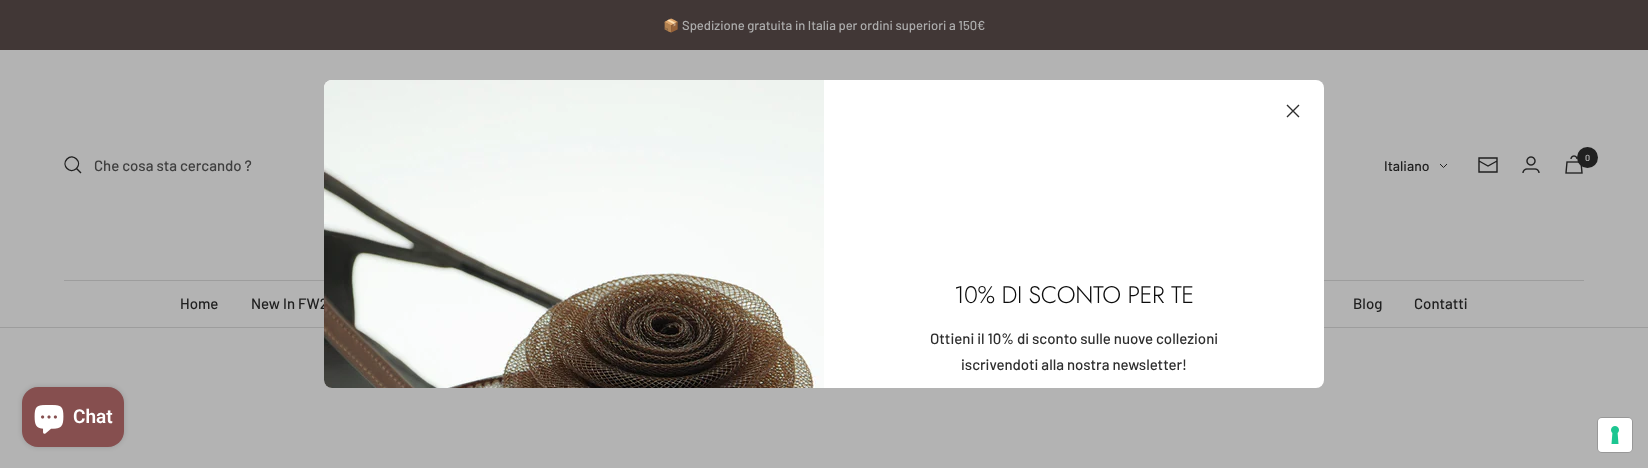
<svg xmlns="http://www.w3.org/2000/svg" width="1648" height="468">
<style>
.a{font:13px Noto Color Emoji;fill:#acacac}
.b{font:500 13px Barlow;fill:#acacac}
.c{font:500 15px Barlow;fill:#3e3e3e}
.d{font:600 9px Barlow;fill:#b3b3b3}
.e{font:500 14px Barlow;fill:#202020}
.f{font:500 15px Barlow;fill:#202020}
.g{font:300 24px Jost;letter-spacing:-0.4px;fill:#0d0d0d}
.h{font:500 15px Barlow;fill:#2e2e2e}
.i{font:600 19px Roboto;fill:#fff}
</style>
<rect width="100%" height="100%" fill="#b3b3b3"/>
<path fill="#413736" d="M0 0h1648v50H0z"/>
<path fill="#9d9d9d" d="M0 327h1648v1H0z"/>
<path fill="none" stroke="#202020" stroke-width="1.4" d="M76.5 168.5c6-6.5-3-15.5-9.5-9.5c-6 6.5 3 15.5 9.5 9.5zm0 0l4.5 4.5"/>
<path fill="none" stroke="#202020" stroke-width="1.4" d="M1497 161l-9 5l-9-5m0-3h18v14h-18z"/>
<image href="1.png" x="1522" y="156" width="18" height="17"/>
<image href="2.png" x="1565" y="155" width="18" height="19"/>
<circle fill="#202020" cx="1587.5" cy="157.5" r="10.5"/>
<path fill="none" stroke="#202020" d="M1440 164l3.5 3.5l3.5-3.5"/>
<path fill="#9d9d9d" d="M64 280h1520v1H64z"/>
<rect fill="#00000026" filter="blur(2.5px)" x="22" y="387" width="102" height="60" rx="16"/>
<rect fill="#864f4f" x="22" y="387" width="102" height="60" rx="16"/>
<image href="4.png" x="34" y="405" width="30" height="29"/>
<rect fill="none" stroke="#989898" x="1597.5" y="417.5" width="35" height="35" rx="4.5"/>
<rect fill="#fff" x="1598" y="418" width="34" height="34" rx="4"/>
<image href="5.png" x="1611" y="426" width="8" height="18"/>
<text class="a" x="663" y="30">📦</text>
<text class="b" x="682" y="30">Spedizione gratuita in Italia per ordini superiori a 150€</text>
<text class="c" x="94" y="171">Che cosa sta cercando ?</text>
<text class="d" x="1585" y="161">0</text>
<text class="e" x="1384" y="171">Italiano</text>
<text class="f" x="180" y="309">Home</text>
<text class="f" x="251" y="309">New In FW2</text>
<text class="f" x="1353" y="309">Blog</text>
<text class="f" x="1414" y="309">Contatti</text>
<rect fill="#fff" x="324" y="80" width="1000" height="308" rx="8"/>
<path fill="none" stroke="#2e2e2e" stroke-width="1.4" d="M1299 117l-12-12m12 0l-12 12"/>
<image href="3.png" x="324" y="80" width="500" height="308"/>
<text class="g" x="954" y="303">10% DI SCONTO PER TE</text>
<text class="h" x="930" y="344">Ottieni il 10% di sconto sulle nuove collezioni</text>
<text class="h" x="961" y="370">iscrivendoti alla nostra newsletter!</text>
<text class="i" x="73" y="423">Chat</text>
</svg>
